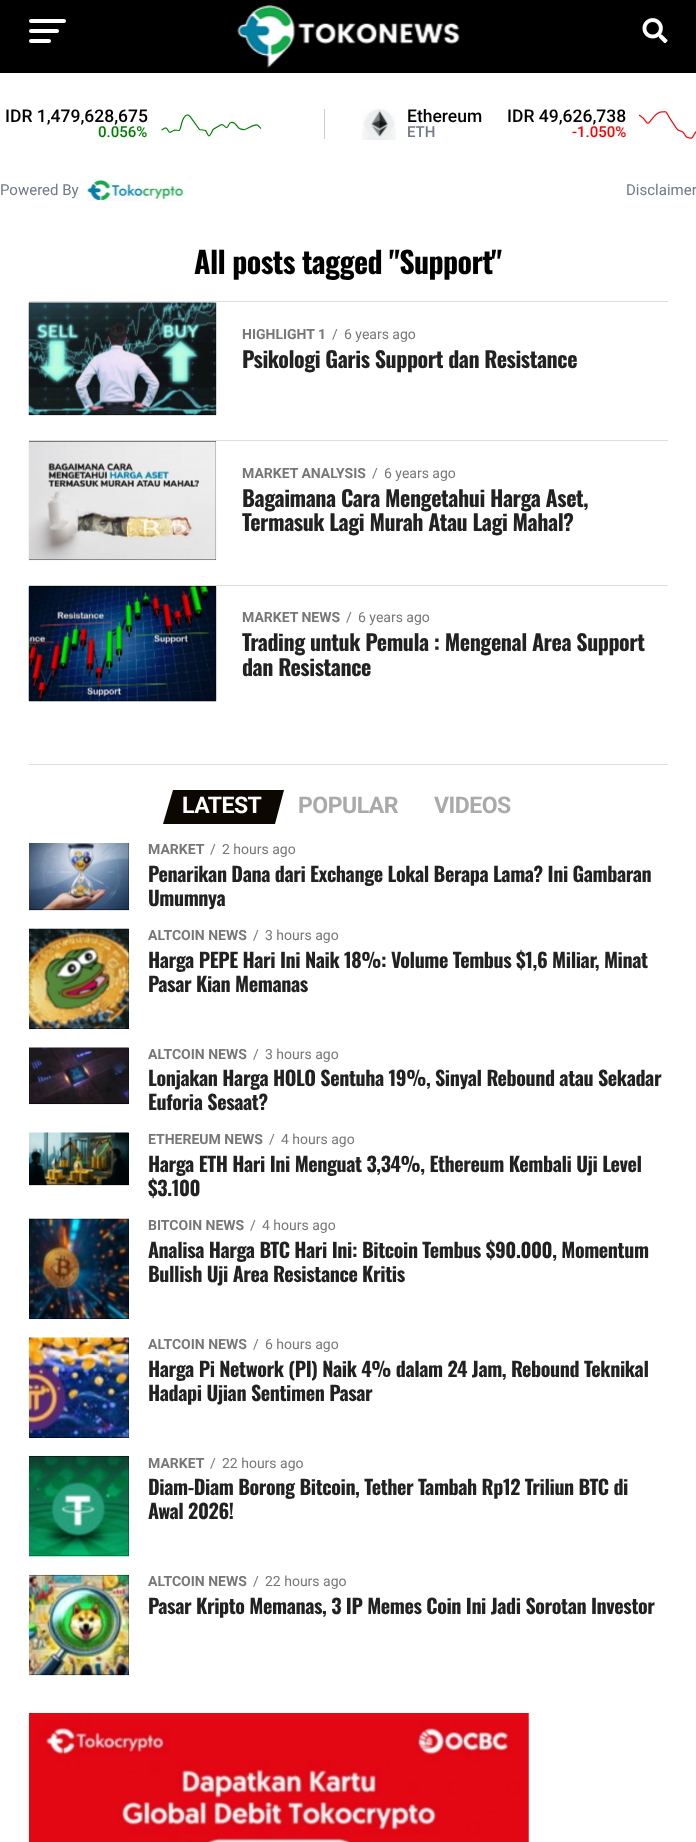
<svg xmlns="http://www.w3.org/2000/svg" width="696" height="1842">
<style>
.a{font:500 17.5px Roboto;fill:#000}
.b{font:500 15px Roboto;fill:#008000}
.c{font:500 15px Roboto;fill:#707a8a}
.d{font:500 15px Roboto;fill:#f00}
.e{font:15px Roboto;fill:#707a8a}
.f{font:bold 30px Oswald;letter-spacing:-0.6px;fill:#000}
.g{font:bold 14px Roboto;fill:#777}
.h{font:14px Roboto;fill:#777}
.i{font:bold 22px Oswald;letter-spacing:-0.45px;fill:#222}
.j{font:bold 23px Roboto;letter-spacing:-0.5px;fill:#fff}
.k{font:bold 23px Roboto;letter-spacing:-0.5px;fill:#aaa}
.l{font:bold 20px Oswald;letter-spacing:-0.4px;fill:#222}
</style>
<defs>
<clipPath id="clip1"><path d="M161 109h100v30H161z"/></clipPath>
</defs>
<rect width="100%" height="100%" fill="#fff"/>
<path fill="#000" d="M0 0h696v73H0z"/>
<rect fill="#fff" x="29" y="19" width="37" height="4" rx="2"/>
<rect fill="#fff" x="29" y="29" width="30" height="4" rx="2"/>
<rect fill="#fff" x="29" y="39" width="22" height="4" rx="2"/>
<image href="1.png" x="237" y="5" width="223" height="63"/>
<image href="2.png" x="642" y="18" width="26" height="26"/>
<g clip-path="url(#clip1)">
<path fill="none" stroke="#008000" stroke-width="1.2" d="M161.5 130l3.5-2c3-.5 3 4.5 5 4.5l4.5-2.5l4.5 .5c2.5-1 2-14 8-15.5c1.5-.5 2.5 1 3 1.5l9.5 13l6 1c1 1 2.5 5.5 3.5 5.5c1.5-.5 3.5-5.5 4-6.5l7.5-4.5c3.5-2 5 4.5 7 2c1-1.5 2-4.5 3.5-4.5c4.5-1 6 4.5 8.5 6c1.5 .5 3.5 1.5 5 1c3-.5 10-6 13-4.5l4 4"/>
</g>
<path fill="#cccdcf" d="M324 109h1v30H324z"/>
<image href="3.png" x="362" y="108" width="34" height="32"/>
<image href="4.png" x="639" y="111" width="57" height="28"/>
<image href="5.png" x="87" y="180" width="97" height="21"/>
<path fill="#ddd" d="M29 301h639v1H29z"/>
<path fill="#000" d="M29 303h187v112H29z"/>
<image href="6.png" x="28" y="302" width="189" height="114"/>
<path fill="#ddd" d="M29 440h639v1H29z"/>
<path fill="#000" d="M29 441h187v119H29z"/>
<image href="7.png" x="28" y="441" width="189" height="120"/>
<path fill="#ddd" d="M29 585h639v1H29z"/>
<path fill="#000" d="M29 586h187v115H29z"/>
<image href="8.png" x="28" y="585" width="189" height="117"/>
<path fill="#ddd" d="M29 764h639v1H29z"/>
<path fill="#0c0700" d="M173 790h111l-9 34h-112z"/>
<path fill="#000" d="M29 843h100v67H29z"/>
<image href="9.png" x="29" y="843" width="100" height="68"/>
<path fill="#000" d="M29 929h100v100H29z"/>
<image href="10.png" x="29" y="928" width="100" height="102"/>
<path fill="#000" d="M29 1048h100v56H29z"/>
<image href="11.png" x="29" y="1047" width="100" height="58"/>
<path fill="#000" d="M29 1133h100v52H29z"/>
<image href="12.png" x="29" y="1132" width="100" height="54"/>
<path fill="#000" d="M29 1219h100v100H29z"/>
<image href="13.png" x="29" y="1218" width="100" height="102"/>
<path fill="#000" d="M29 1338h100v100H29z"/>
<image href="14.png" x="29" y="1337" width="100" height="101"/>
<path fill="#000" d="M29 1456h100v100H29z"/>
<image href="15.png" x="29" y="1455" width="100" height="102"/>
<path fill="#000" d="M29 1575h100v100H29z"/>
<image href="16.png" x="29" y="1574" width="100" height="102"/>
<image href="17.png" x="29" y="1713" width="500" height="129"/>
<text class="a" x="5" y="122">IDR 1,479,628,675</text>
<text class="b" x="98" y="137">0.056%</text>
<text class="a" x="407" y="122">Ethereum</text>
<text class="a" x="507" y="122">IDR 49,626,738</text>
<text class="c" x="407" y="137">ETH</text>
<text class="d" x="572" y="137">-1.050%</text>
<text class="e" x="0" y="195">Powered By</text>
<text class="e" x="626" y="195">Disclaimer</text>
<text class="f" x="194" y="274">All posts tagged "Support"</text>
<text class="g" x="242" y="339">HIGHLIGHT 1</text>
<text class="h" x="332" y="339">/</text>
<text class="h" x="344" y="339">6 years ago</text>
<text class="i" x="242" y="368">Psikologi Garis Support dan Resistance</text>
<text class="g" x="242" y="478">MARKET ANALYSIS</text>
<text class="h" x="372" y="478">/</text>
<text class="h" x="384" y="478">6 years ago</text>
<text class="i" x="242" y="507">Bagaimana Cara Mengetahui Harga Aset,</text>
<text class="i" x="242" y="531">Termasuk Lagi Murah Atau Lagi Mahal?</text>
<text class="g" x="242" y="622">MARKET NEWS</text>
<text class="h" x="346" y="622">/</text>
<text class="h" x="358" y="622">6 years ago</text>
<text class="i" x="242" y="651">Trading untuk Pemula : Mengenal Area Support</text>
<text class="i" x="242" y="676">dan Resistance</text>
<text class="j" x="182" y="813">LATEST</text>
<text class="k" x="298" y="813">POPULAR</text>
<text class="k" x="434" y="813">VIDEOS</text>
<text class="g" x="148" y="854">MARKET</text>
<text class="h" x="210" y="854">/</text>
<text class="h" x="222" y="854">2 hours ago</text>
<text class="l" x="148" y="882">Penarikan Dana dari Exchange Lokal Berapa Lama? Ini Gambaran</text>
<text class="l" x="148" y="906">Umumnya</text>
<text class="g" x="148" y="940">ALTCOIN NEWS</text>
<text class="h" x="253" y="940">/</text>
<text class="h" x="265" y="940">3 hours ago</text>
<text class="l" x="148" y="968">Harga PEPE Hari Ini Naik 18%: Volume Tembus $1,6 Miliar, Minat</text>
<text class="l" x="148" y="992">Pasar Kian Memanas</text>
<text class="g" x="148" y="1059">ALTCOIN NEWS</text>
<text class="h" x="253" y="1059">/</text>
<text class="h" x="265" y="1059">3 hours ago</text>
<text class="l" x="148" y="1086">Lonjakan Harga HOLO Sentuha 19%, Sinyal Rebound atau Sekadar</text>
<text class="l" x="148" y="1110">Euforia Sesaat?</text>
<text class="g" x="148" y="1144">ETHEREUM NEWS</text>
<text class="h" x="269" y="1144">/</text>
<text class="h" x="281" y="1144">4 hours ago</text>
<text class="l" x="148" y="1172">Harga ETH Hari Ini Menguat 3,34%, Ethereum Kembali Uji Level</text>
<text class="l" x="148" y="1196">$3.100</text>
<text class="g" x="148" y="1230">BITCOIN NEWS</text>
<text class="h" x="250" y="1230">/</text>
<text class="h" x="262" y="1230">4 hours ago</text>
<text class="l" x="148" y="1258">Analisa Harga BTC Hari Ini: Bitcoin Tembus $90.000, Momentum</text>
<text class="l" x="148" y="1282">Bullish Uji Area Resistance Kritis</text>
<text class="g" x="148" y="1349">ALTCOIN NEWS</text>
<text class="h" x="253" y="1349">/</text>
<text class="h" x="265" y="1349">6 hours ago</text>
<text class="l" x="148" y="1377">Harga Pi Network (PI) Naik 4% dalam 24 Jam, Rebound Teknikal</text>
<text class="l" x="148" y="1401">Hadapi Ujian Sentimen Pasar</text>
<text class="g" x="148" y="1468">MARKET</text>
<text class="h" x="210" y="1468">/</text>
<text class="h" x="222" y="1468">22 hours ago</text>
<text class="l" x="148" y="1495">Diam-Diam Borong Bitcoin, Tether Tambah Rp12 Triliun BTC di</text>
<text class="l" x="148" y="1519">Awal 2026!</text>
<text class="g" x="148" y="1586">ALTCOIN NEWS</text>
<text class="h" x="253" y="1586">/</text>
<text class="h" x="265" y="1586">22 hours ago</text>
<text class="l" x="148" y="1614">Pasar Kripto Memanas, 3 IP Memes Coin Ini Jadi Sorotan Investor</text>
</svg>
